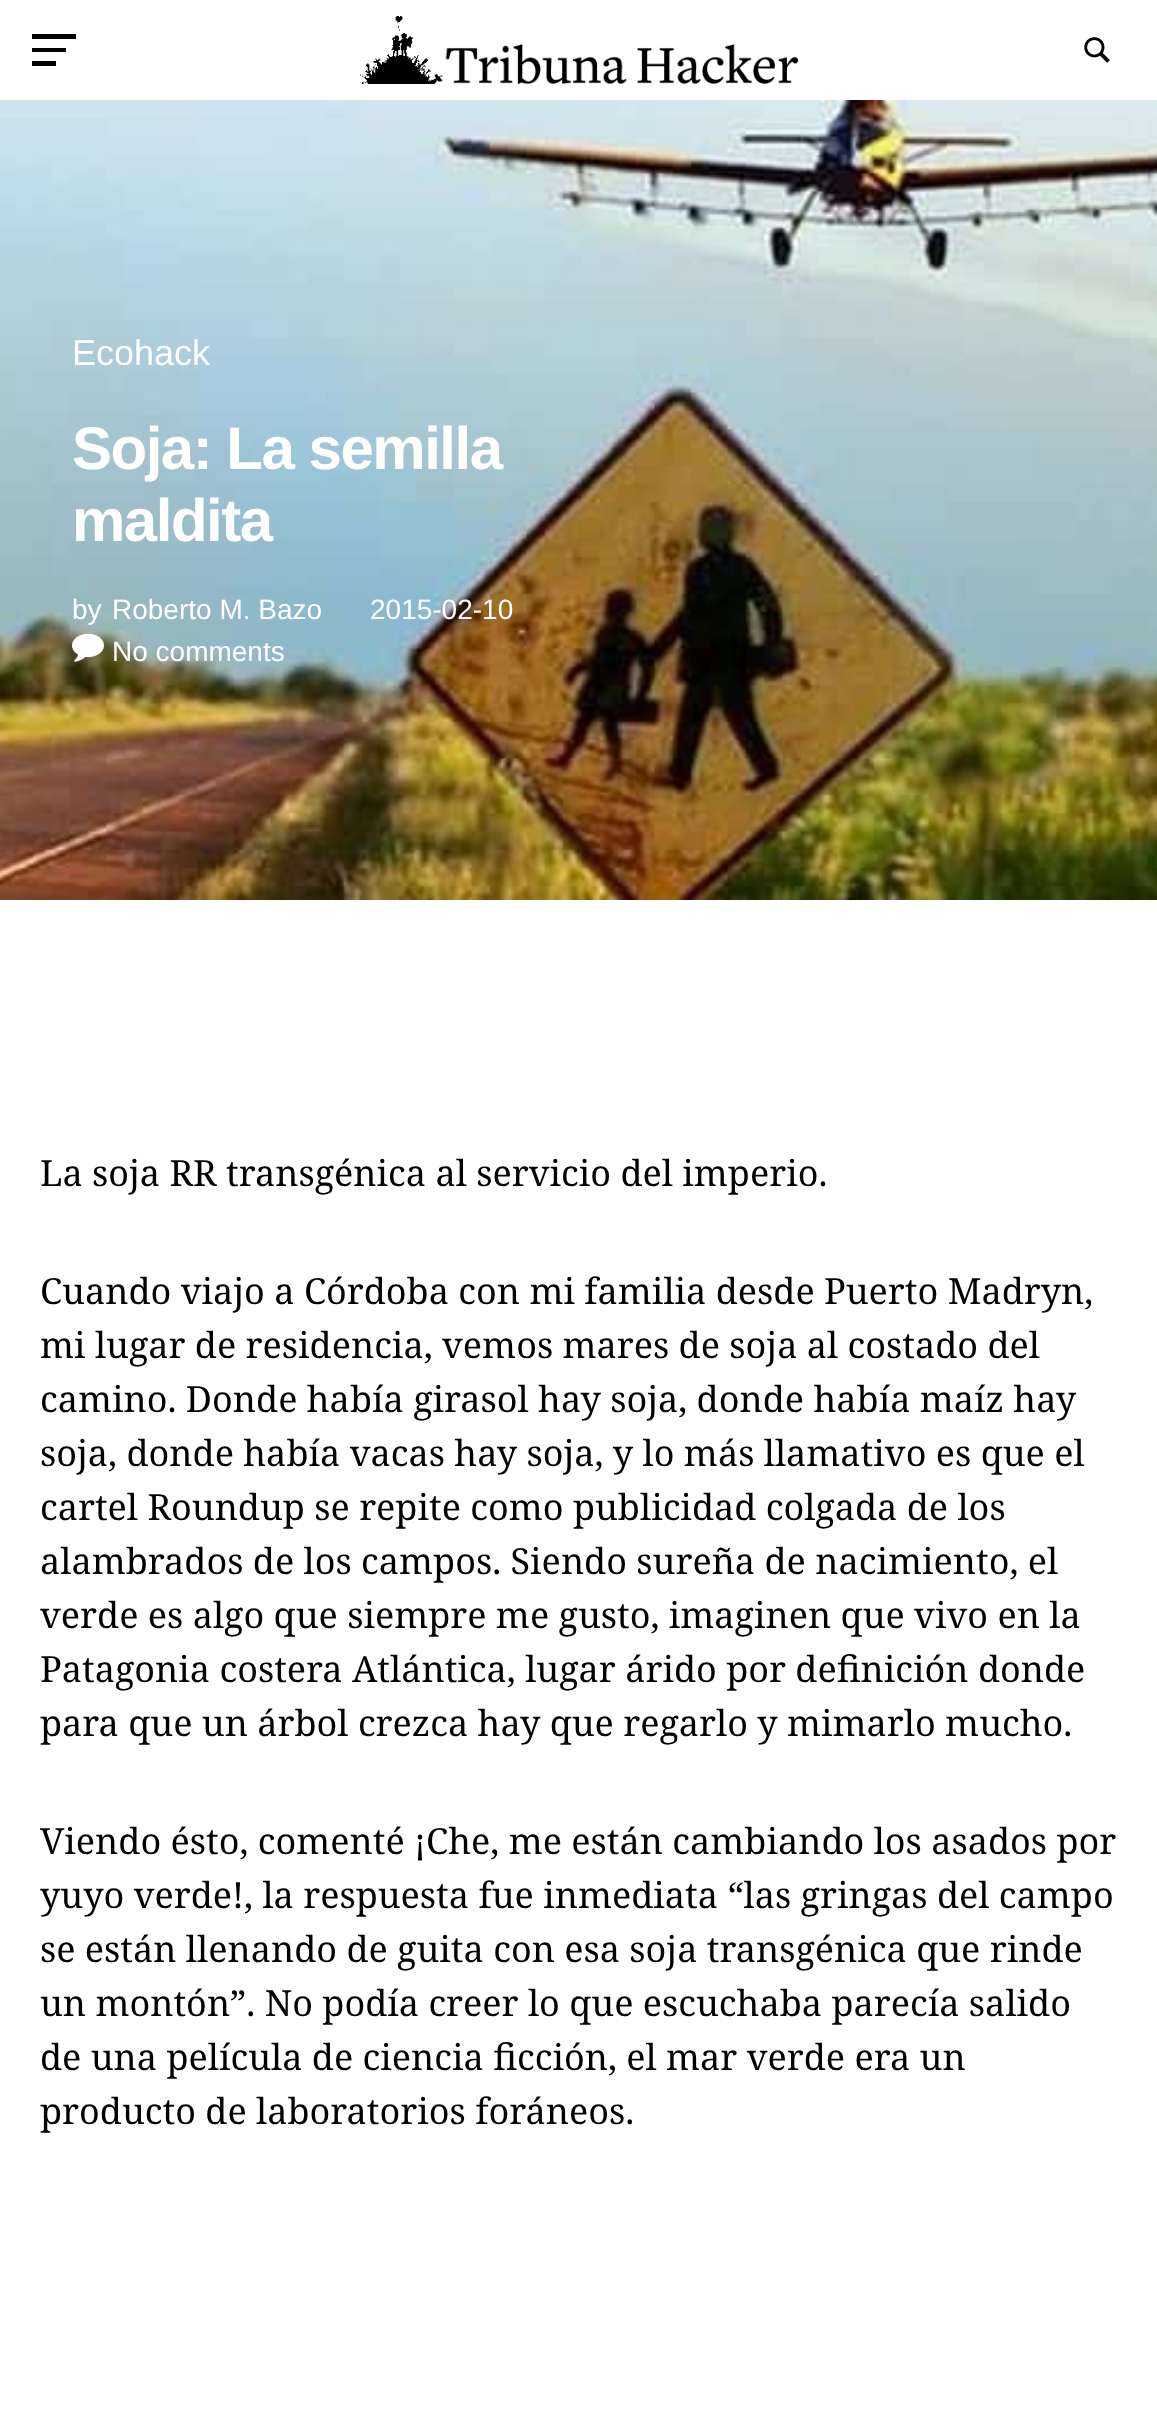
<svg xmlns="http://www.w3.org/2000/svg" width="1157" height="2427">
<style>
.a{font:36px Liberation Sans;fill:#fff}
.b{font:bold 60px Liberation Sans;letter-spacing:-1.5px;fill:#fff}
.c{font:28px Liberation Sans;fill:#fff}
.d{font:36px Noto Serif;fill:#000}
</style>
<rect width="100%" height="100%" fill="#fff"/>
<path fill="#000" d="M32 34v5h44v-5zm0 14v4h34v-4zm0 18v-5h24v5z"/>
<image href="1.png" x="360" y="16" width="438" height="68"/>
<image href="2.png" x="1084" y="37" width="26" height="26"/>
<image href="3.png" x="0" y="100" width="1157" height="800"/>
<image href="4.png" x="72" y="633" width="32" height="29"/>
<text class="a" x="72" y="365">Ecohack</text>
<text class="b" x="72" y="469">Soja: La semilla</text>
<text class="b" x="72" y="541">maldita</text>
<text class="c" x="72" y="619">by</text>
<text class="c" x="112" y="619">Roberto M. Bazo</text>
<text class="c" x="370" y="619">2015-02-10</text>
<text class="c" x="112" y="661">No comments</text>
<text class="d" x="40" y="1186">La soja RR transgénica al servicio del imperio.</text>
<text class="d" x="40" y="1304">Cuando viajo a Córdoba con mi familia desde Puerto Madryn,</text>
<text class="d" x="40" y="1358">mi lugar de residencia, vemos mares de soja al costado del</text>
<text class="d" x="40" y="1412">camino. Donde había girasol hay soja, donde había maíz hay</text>
<text class="d" x="40" y="1466">soja, donde había vacas hay soja, y lo más llamativo es que el</text>
<text class="d" x="40" y="1520">cartel Roundup se repite como publicidad colgada de los</text>
<text class="d" x="40" y="1574">alambrados de los campos. Siendo sureña de nacimiento, el</text>
<text class="d" x="40" y="1628">verde es algo que siempre me gusto, imaginen que vivo en la</text>
<text class="d" x="40" y="1682">Patagonia costera Atlántica, lugar árido por definición donde</text>
<text class="d" x="40" y="1736">para que un árbol crezca hay que regarlo y mimarlo mucho.</text>
<text class="d" x="40" y="1854">Viendo ésto, comenté ¡Che, me están cambiando los asados por</text>
<text class="d" x="40" y="1908">yuyo verde!, la respuesta fue inmediata “las gringas del campo</text>
<text class="d" x="40" y="1962">se están llenando de guita con esa soja transgénica que rinde</text>
<text class="d" x="40" y="2016">un montón”. No podía creer lo que escuchaba parecía salido</text>
<text class="d" x="40" y="2070">de una película de ciencia ficción, el mar verde era un</text>
<text class="d" x="40" y="2124">producto de laboratorios foráneos.</text>
</svg>
